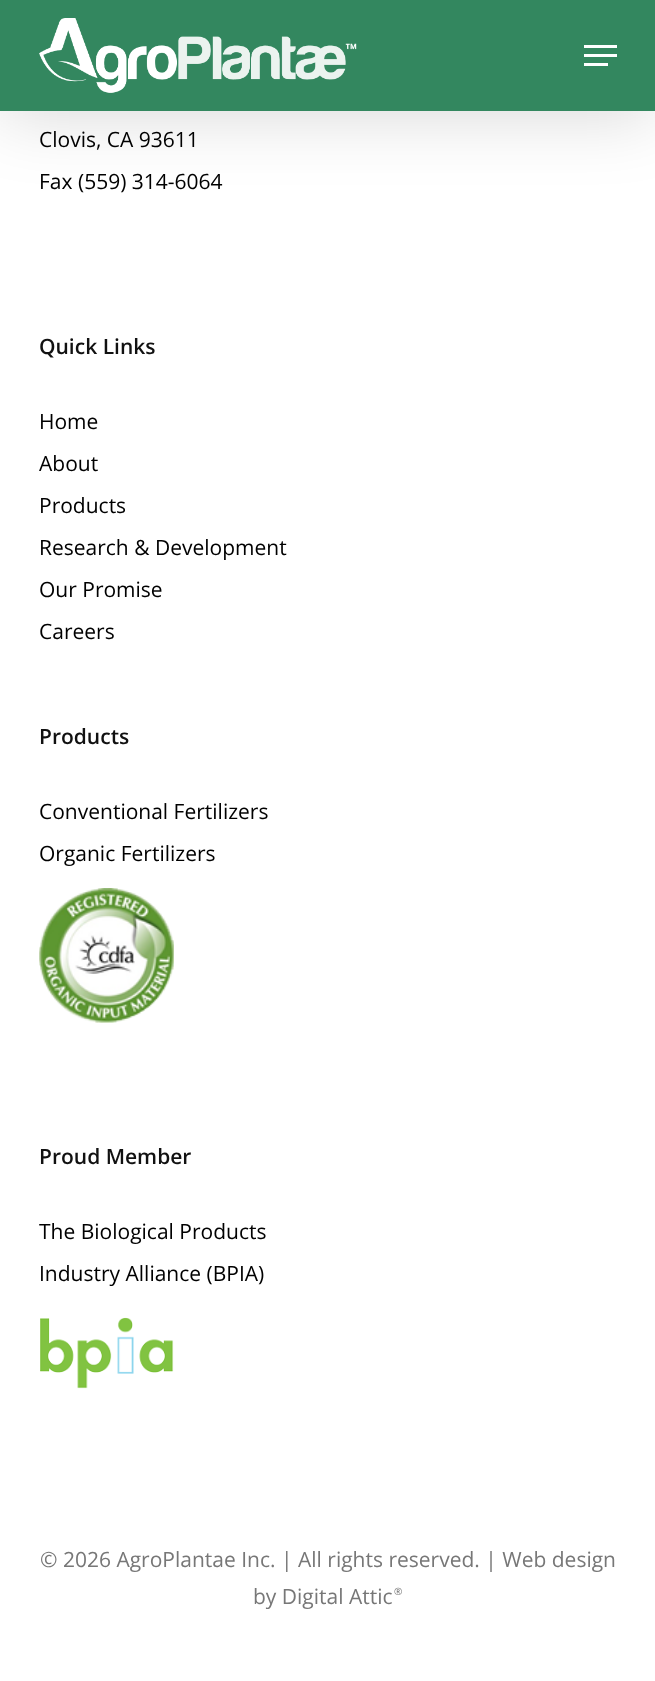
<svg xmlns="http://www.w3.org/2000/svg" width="655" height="1681">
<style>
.a{font:21px Open Sans;fill:#000}
.b{font:600 21px Open Sans;fill:#111}
.c{font:21px Open Sans;fill:#777}
.d{font:10px Open Sans;fill:#777}
</style>
<rect width="100%" height="100%" fill="#fff"/>
<path fill="#00000026" filter="blur(34px)" d="M0 5h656v111H0z"/>
<path fill="#33875f" d="M0 0h655v111H0z"/>
<image href="1.png" x="39" y="18" width="318" height="75"/>
<path fill="#fff" d="M584 45h33v3H584z"/>
<path fill="#fff" d="M584 63h24v3H584z"/>
<path fill="#fff" d="M584 54h33v3H584z"/>
<image href="2.png" x="39" y="888" width="135" height="135"/>
<image href="3.png" x="40" y="1317" width="134" height="72"/>
<text class="a" x="39" y="147">Clovis, CA 93611</text>
<text class="a" x="39" y="189">Fax (559) 314-6064</text>
<text class="b" x="39" y="354">Quick Links</text>
<text class="a" x="39" y="429">Home</text>
<text class="a" x="39" y="471">About</text>
<text class="a" x="39" y="513">Products</text>
<text class="a" x="39" y="555">Research &amp; Development</text>
<text class="a" x="39" y="597">Our Promise</text>
<text class="a" x="39" y="639">Careers</text>
<text class="b" x="39" y="744">Products</text>
<text class="a" x="39" y="819">Conventional Fertilizers</text>
<text class="a" x="39" y="861">Organic Fertilizers</text>
<text class="b" x="39" y="1164">Proud Member</text>
<text class="a" x="39" y="1239">The Biological Products</text>
<text class="a" x="39" y="1281">Industry Alliance (BPIA)</text>
<text class="c" x="40" y="1567">© 2026 AgroPlantae Inc. | All rights reserved. | Web design</text>
<text class="c" x="253" y="1604">by Digital Attic</text>
<text class="d" x="394" y="1595">®</text>
</svg>
